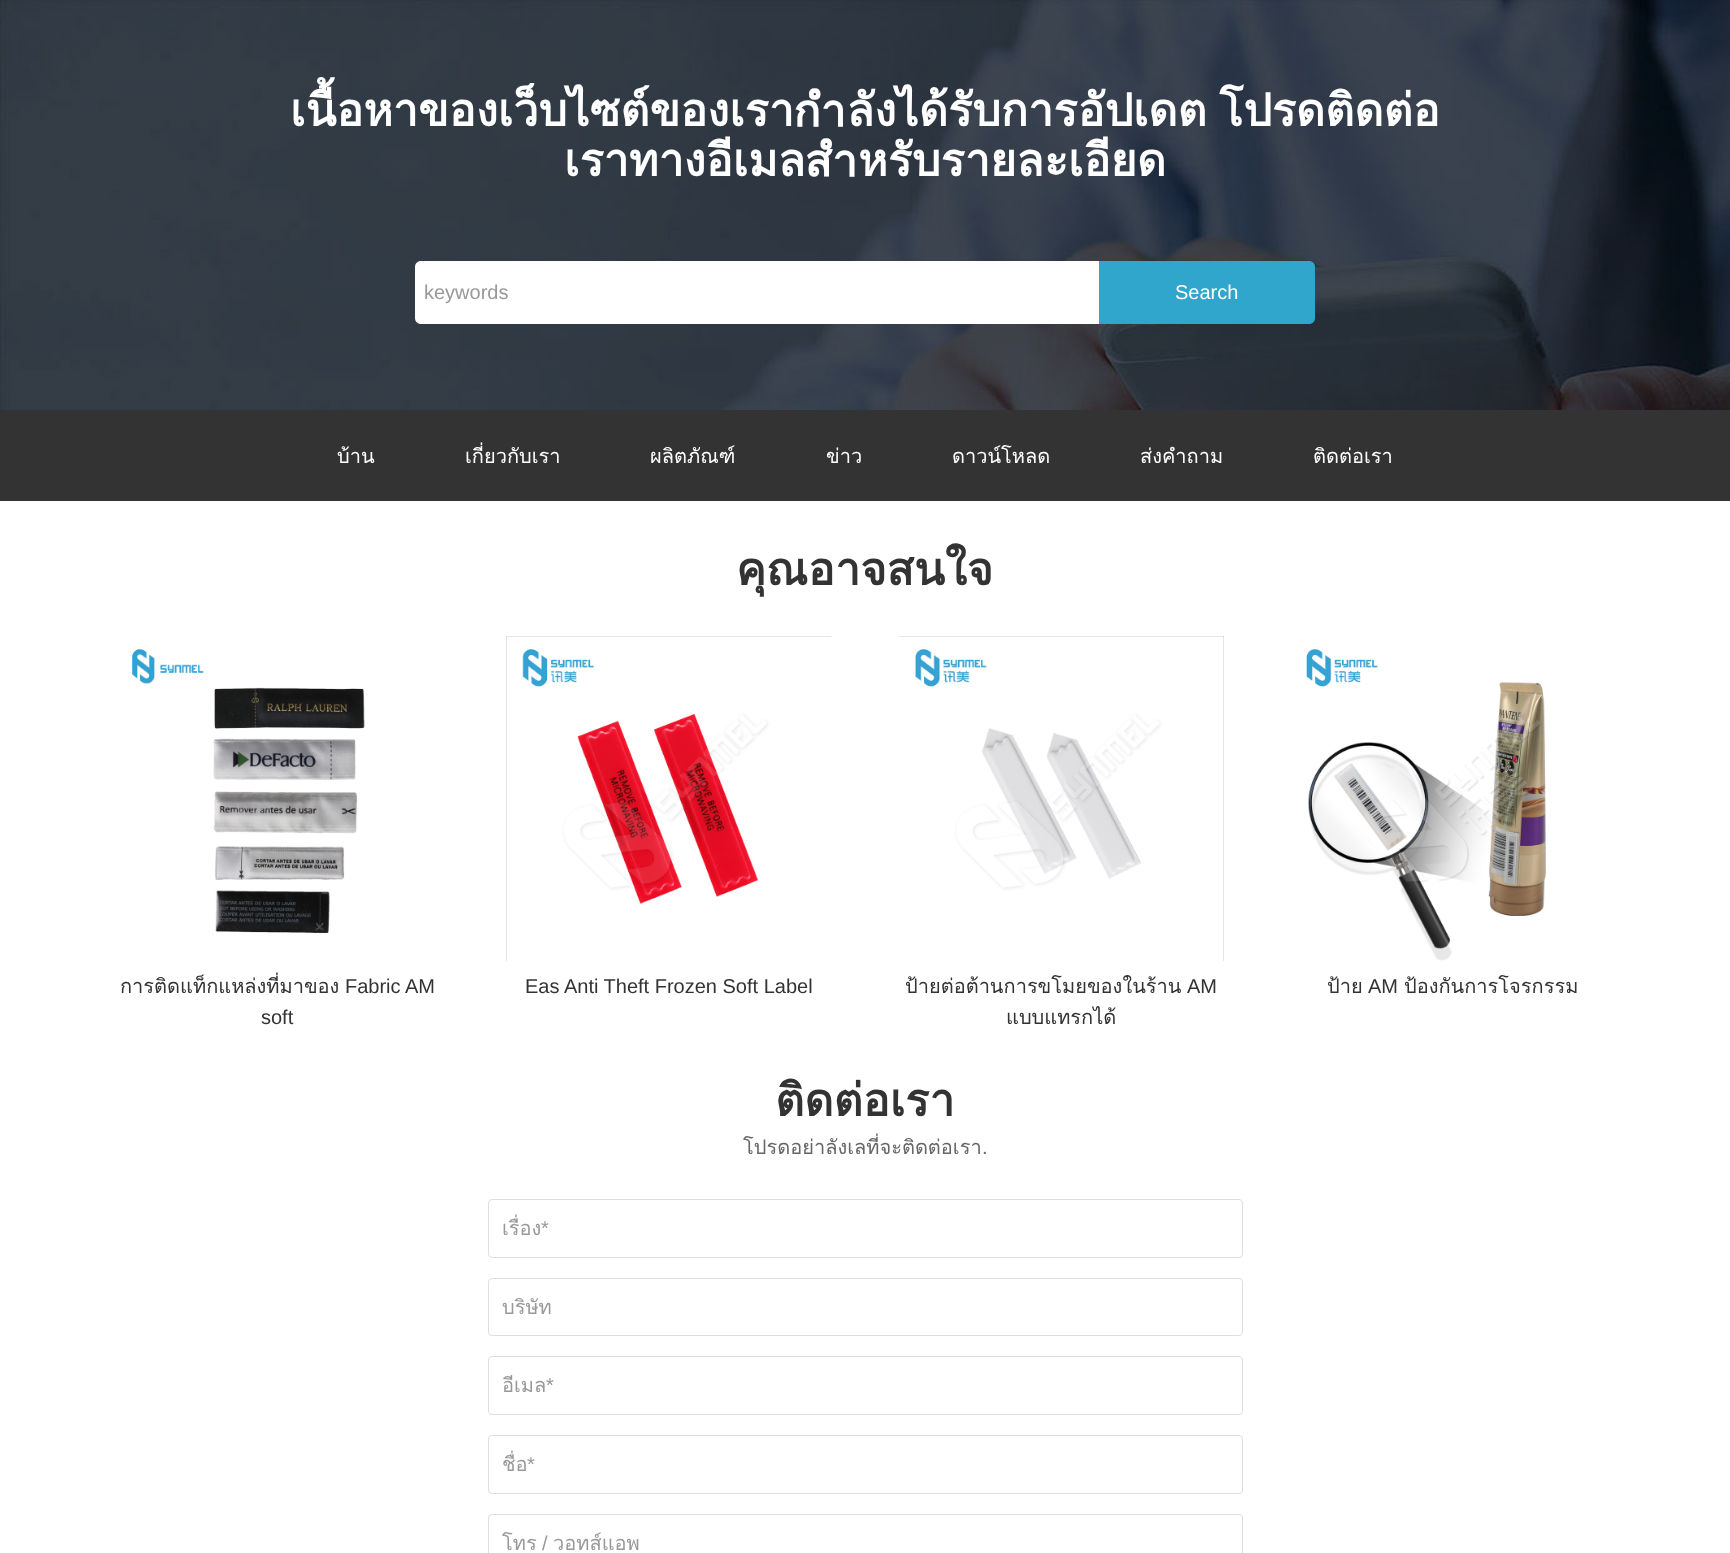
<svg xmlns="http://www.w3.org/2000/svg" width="1730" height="1553">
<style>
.a{font:bold 45px Loma;fill:#fff}
.b{font:20px Liberation Sans;fill:#999}
.c{font:20px Liberation Sans;fill:#fff}
.d{font:20px Loma;fill:#fff}
.e{font:bold 45px Loma;fill:#333}
.f{font:20px Loma;fill:#333}
.g{font:20px Liberation Sans;fill:#333}
.h{font:20px Loma;fill:#666}
.i{font:20px Liberation Sans;fill:#666}
.j{font:20px Loma;fill:#999}
</style>
<defs>
<clipPath id="clip1"><path d="M501 1213h728v31H501z"/></clipPath>
<clipPath id="clip2"><path d="M501 1370h728v31H501z"/></clipPath>
<clipPath id="clip3"><path d="M501 1449h728v31H501z"/></clipPath>
</defs>
<rect width="100%" height="100%" fill="#fff"/>
<image href="1.png" x="0" y="0" width="1730" height="410"/>
<path fill="#fff" d="M421 261h678v63h-678c-3.5 0-6-2.5-6-6v-51c0-3.5 2.5-6 6-6z"/>
<path fill="#31a6cc" d="M1099 261h210c3.5 0 6 2.5 6 6v51c0 3.5-2.5 6-6 6h-210z"/>
<path fill="#333" d="M0 410h1730v91H0z"/>
<image href="2.png" x="115" y="636" width="325" height="325"/>
<path fill="#999" d="M506 636h325v325H506z"/>
<image href="3.png" x="506" y="636" width="325" height="325"/>
<path fill="#999" d="M899 636h325v325H899z"/>
<image href="4.png" x="899" y="636" width="325" height="325"/>
<image href="5.png" x="1290" y="636" width="325" height="325"/>
<rect fill="none" stroke="#dedede" x="488.5" y="1199.5" width="754" height="58" rx="3.5"/>
<rect fill="none" stroke="#dedede" x="488.5" y="1278.5" width="754" height="57" rx="3.5"/>
<rect fill="none" stroke="#dedede" x="488.5" y="1356.5" width="754" height="58" rx="3.5"/>
<rect fill="none" stroke="#dedede" x="488.5" y="1435.5" width="754" height="58" rx="3.5"/>
<rect fill="none" stroke="#dedede" x="488.5" y="1514.5" width="754" height="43" rx="3.5"/>
<text class="a" x="290" y="126" word-spacing="-3">เนื้อหาของเว็บไซต์ของเรากำลังได้รับการอัปเดต โปรดติดต่อ</text>
<text class="a" x="564" y="176">เราทางอีเมลสำหรับรายละเอียด</text>
<text class="b" x="424" y="299">keywords</text>
<text class="c" x="1175" y="299">Search</text>
<text class="d" x="337" y="463">บ้าน</text>
<text class="d" x="465" y="463">เกี่ยวกับเรา</text>
<text class="d" x="650" y="463">ผลิตภัณฑ์</text>
<text class="d" x="826" y="463">ข่าว</text>
<text class="d" x="952" y="463">ดาวน์โหลด</text>
<text class="d" x="1140" y="463">ส่งคำถาม</text>
<text class="d" x="1313" y="463">ติดต่อเรา</text>
<text class="e" x="736" y="585">คุณอาจสนใจ</text>
<text class="f" x="120" y="993">การติดแท็กแหล่งที่มาของ</text>
<text class="g" x="345" y="993">Fabric AM</text>
<text class="g" x="261" y="1024">soft</text>
<text class="g" x="525" y="993">Eas Anti Theft Frozen Soft Label</text>
<text class="f" x="905" y="993">ป้ายต่อต้านการขโมยของในร้าน</text>
<text class="g" x="1187" y="993">AM</text>
<text class="f" x="1006" y="1024">แบบแทรกได้</text>
<text class="f" x="1327" y="993">ป้าย</text>
<text class="g" x="1368" y="993">AM</text>
<text class="f" x="1404" y="993">ป้องกันการโจรกรรม</text>
<text class="e" x="775" y="1116">ติดต่อเรา</text>
<text class="h" x="743" y="1154">โปรดอย่าลังเลที่จะติดต่อเรา</text>
<text class="i" x="982" y="1154">.</text>
<g clip-path="url(#clip1)">
<text class="j" x="502" y="1235">เรื่อง</text>
</g>
<text class="b" x="541" y="1235">*</text>
<text class="j" x="502" y="1314">บริษัท</text>
<g clip-path="url(#clip2)">
<text class="j" x="502" y="1392">อีเมล</text>
</g>
<text class="b" x="546" y="1392">*</text>
<g clip-path="url(#clip3)">
<text class="j" x="502" y="1471">ชื่อ</text>
</g>
<text class="b" x="527" y="1471">*</text>
<text class="j" x="502" y="1550">โทร</text>
<text class="b" x="542" y="1550">/</text>
<text class="j" x="553" y="1550">วอทส์แอพ</text>
</svg>
